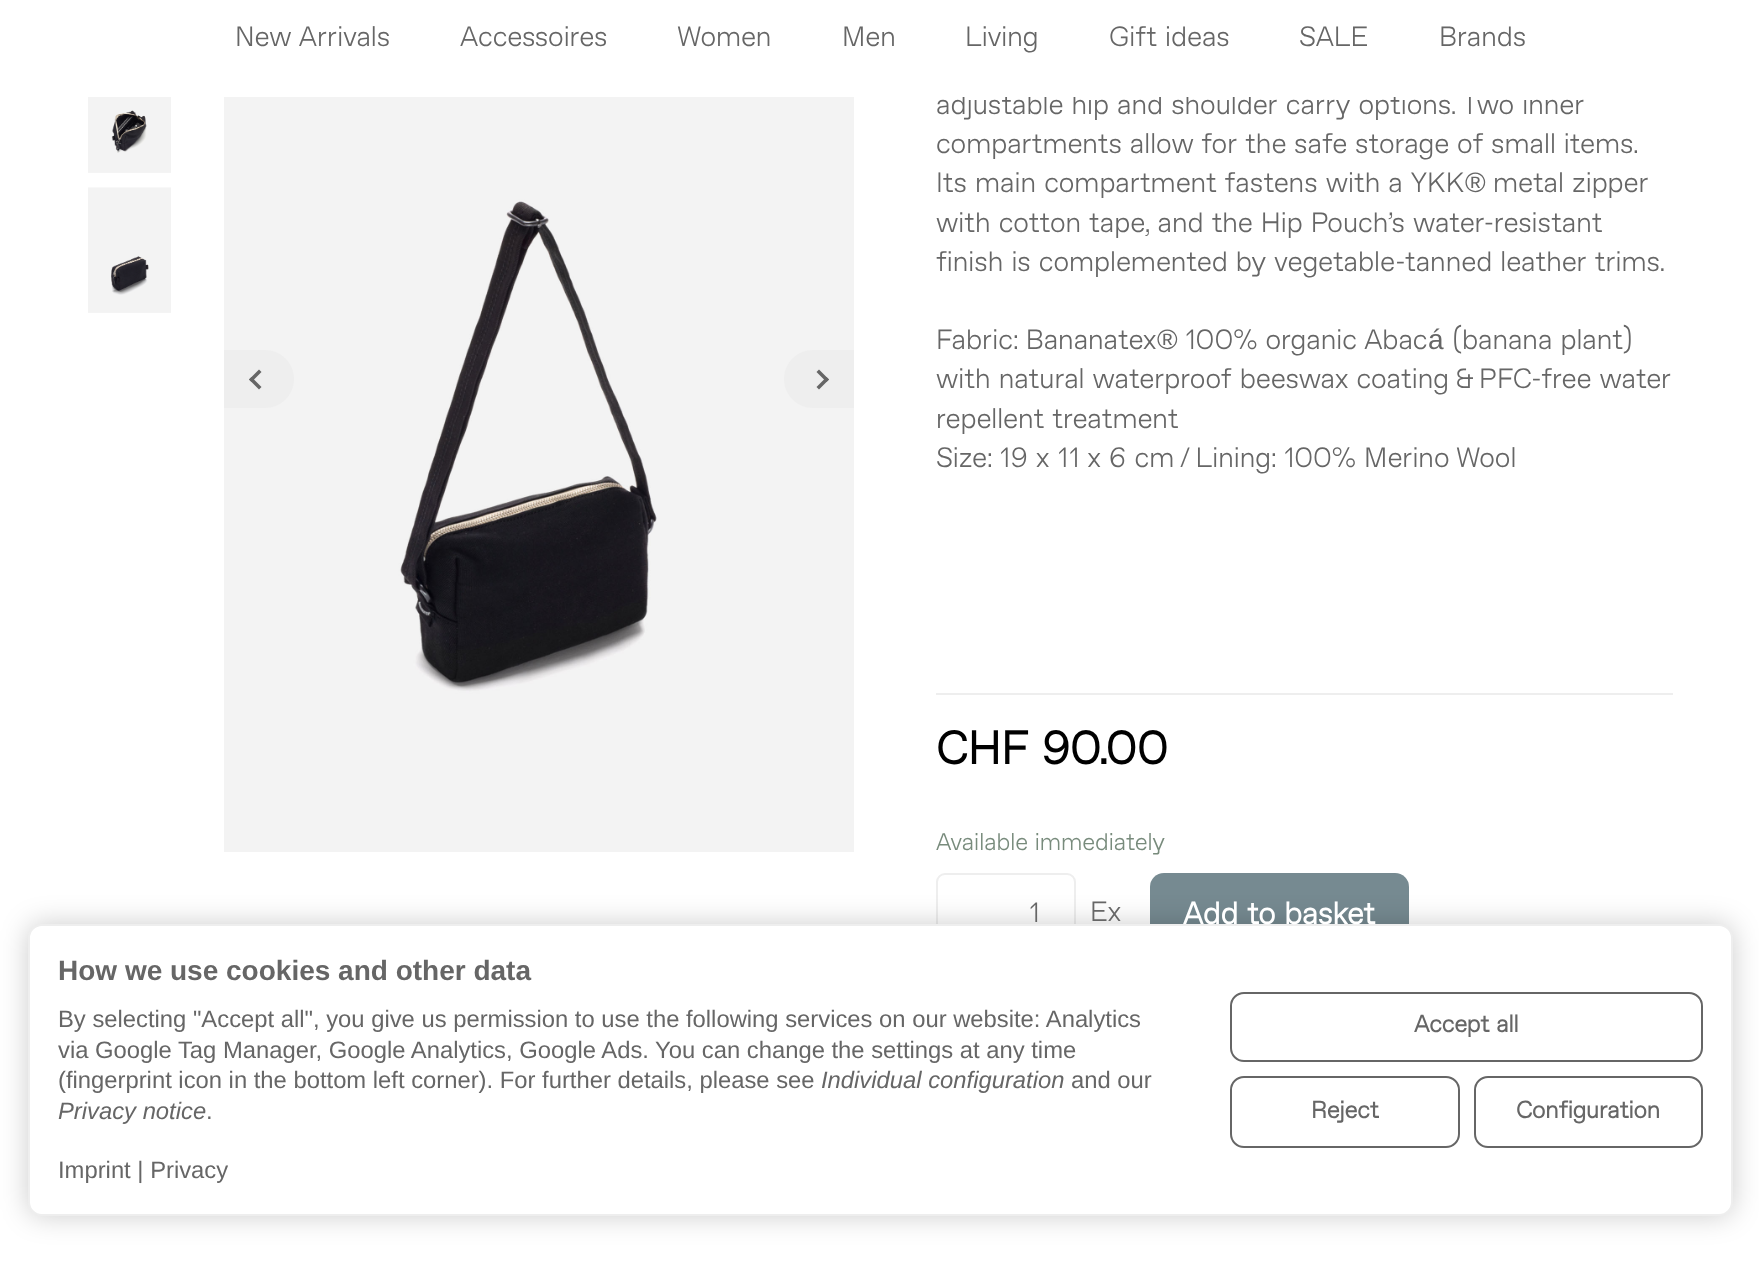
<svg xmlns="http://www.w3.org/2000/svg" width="1759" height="1271">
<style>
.a{font:300 28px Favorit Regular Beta;fill:#666}
.b{font:28px Liberation Sans;fill:#666}
.c{font:bold 46.25px Favorit Regular Beta;fill:#000}
.d{font:300 23.8px Favorit Regular Beta;fill:#788b7c}
.e{font:bold 30.75px Favorit Regular Beta;fill:#fff}
.f{font:bold 28px Liberation Sans;fill:#666}
.g{font:23.8px Liberation Sans;fill:#666}
.h{font:italic 23.8px Liberation Sans;fill:#666}
.i{font:bold 23.8px Favorit Regular Beta;fill:#666}
</style>
<rect width="100%" height="100%" fill="#fff"/>
<image href="1.png" x="88" y="97" width="83" height="76"/>
<image href="2.png" x="88" y="187" width="83" height="126"/>
<image href="3.png" x="224" y="97" width="630" height="755"/>
<path fill="#eee" d="M224 350h41c16 0 29 13 29 29c0 16-13 29-29 29h-41z"/>
<path fill="#666" d="M261.5 387l-2.5 2.5l-10-10l2.5-2.5z"/>
<path fill="#666" d="M261.5 372l-10 10l-2.5-2.5l10-10z"/>
<path fill="#eee" d="M813 350h41v58h-41c-16 0-29-13-29-29c0-16 13-29 29-29z"/>
<path fill="#666" d="M816.5 372l2.5-2.5l10 10l-2.5 2.5z"/>
<path fill="#666" d="M816.5 387l10-10l2.5 2.5l-10 10z"/>
<path fill="#eee" d="M936 693h737v2H936z"/>
<rect fill="none" stroke="#eee" stroke-width="2" x="937" y="874" width="138" height="84" rx="8"/>
<rect fill="#768a91" x="1150" y="873" width="259" height="86" rx="14"/>
<rect fill="#00000033" filter="blur(14px)" x="28" y="924" width="1705" height="292" rx="14"/>
<rect fill="#fff" stroke="#eee" stroke-width="2" x="29" y="925" width="1703" height="290" rx="13"/>
<rect fill="none" stroke="#666" stroke-width="2" x="1231" y="993" width="471" height="68" rx="13"/>
<rect fill="none" stroke="#666" stroke-width="2" x="1231" y="1077" width="228" height="70" rx="13"/>
<rect fill="none" stroke="#666" stroke-width="2" x="1475" y="1077" width="227" height="70" rx="13"/>
<text class="a" x="235" y="46">New Arrivals</text>
<text class="a" x="460" y="46">Accessoires</text>
<text class="a" x="677" y="46">Women</text>
<text class="a" x="842" y="46">Men</text>
<text class="a" x="965" y="46">Living</text>
<text class="a" x="1109" y="46">Gift ideas</text>
<text class="a" x="1299" y="46">SALE</text>
<text class="a" x="1439" y="46">Brands</text>
<text class="a" x="936" y="114">adjustable hip and shoulder carry options. Two inner</text>
<path fill="#fff" d="M962 94h565v3H962z"/>
<text class="a" x="936" y="153" word-spacing="-0.25">compartments allow for the safe storage of small items.</text>
<text class="a" x="936" y="192">Its main compartment fastens with a YKK</text>
<text class="b" x="1465" y="192">®</text>
<text class="a" x="1493" y="192">metal zipper</text>
<text class="a" x="936" y="232">with cotton tape, and the Hip Pouch’s water-resistant</text>
<text class="a" x="936" y="271">finish is complemented by vegetable-tanned leather trims.</text>
<text class="a" x="936" y="349">Fabric: Bananatex</text>
<text class="b" x="1157" y="349">®</text>
<text class="a" x="1185" y="349">100% organic Abac</text>
<text class="b" x="1428" y="349">á</text>
<text class="a" x="1452" y="349">(banana plant)</text>
<text class="a" x="936" y="388">with natural waterproof beeswax coating &amp; PFC-free water</text>
<text class="a" x="936" y="428">repellent treatment</text>
<text class="a" x="936" y="467">Size: 19 x 11 x 6 cm / Lining: 100% Merino Wool</text>
<text class="c" x="936" y="764">CHF 90.00</text>
<text class="d" x="936" y="850">Available immediately</text>
<text class="a" x="1029" y="922">1</text>
<text class="a" x="1090" y="921">Ex</text>
<text class="e" x="1183" y="924">Add to basket</text>
<text class="f" x="58" y="980">How we use cookies and other data</text>
<text class="g" x="58" y="1027">By selecting "Accept all", you give us permission to use the following services on our website: Analytics</text>
<text class="g" x="58" y="1058">via Google Tag Manager, Google Analytics, Google Ads. You can change the settings at any time</text>
<text class="g" x="58" y="1088">(fingerprint icon in the bottom left corner). For further details, please see</text>
<text class="h" x="821" y="1088">Individual configuration</text>
<text class="g" x="1071" y="1088">and our</text>
<text class="h" x="58" y="1119">Privacy notice</text>
<text class="g" x="206" y="1119">.</text>
<text class="g" x="58" y="1178">Imprint | Privacy</text>
<text class="i" x="1414" y="1032">Accept all</text>
<text class="i" x="1311" y="1118">Reject</text>
<text class="i" x="1516" y="1118">Configuration</text>
</svg>
